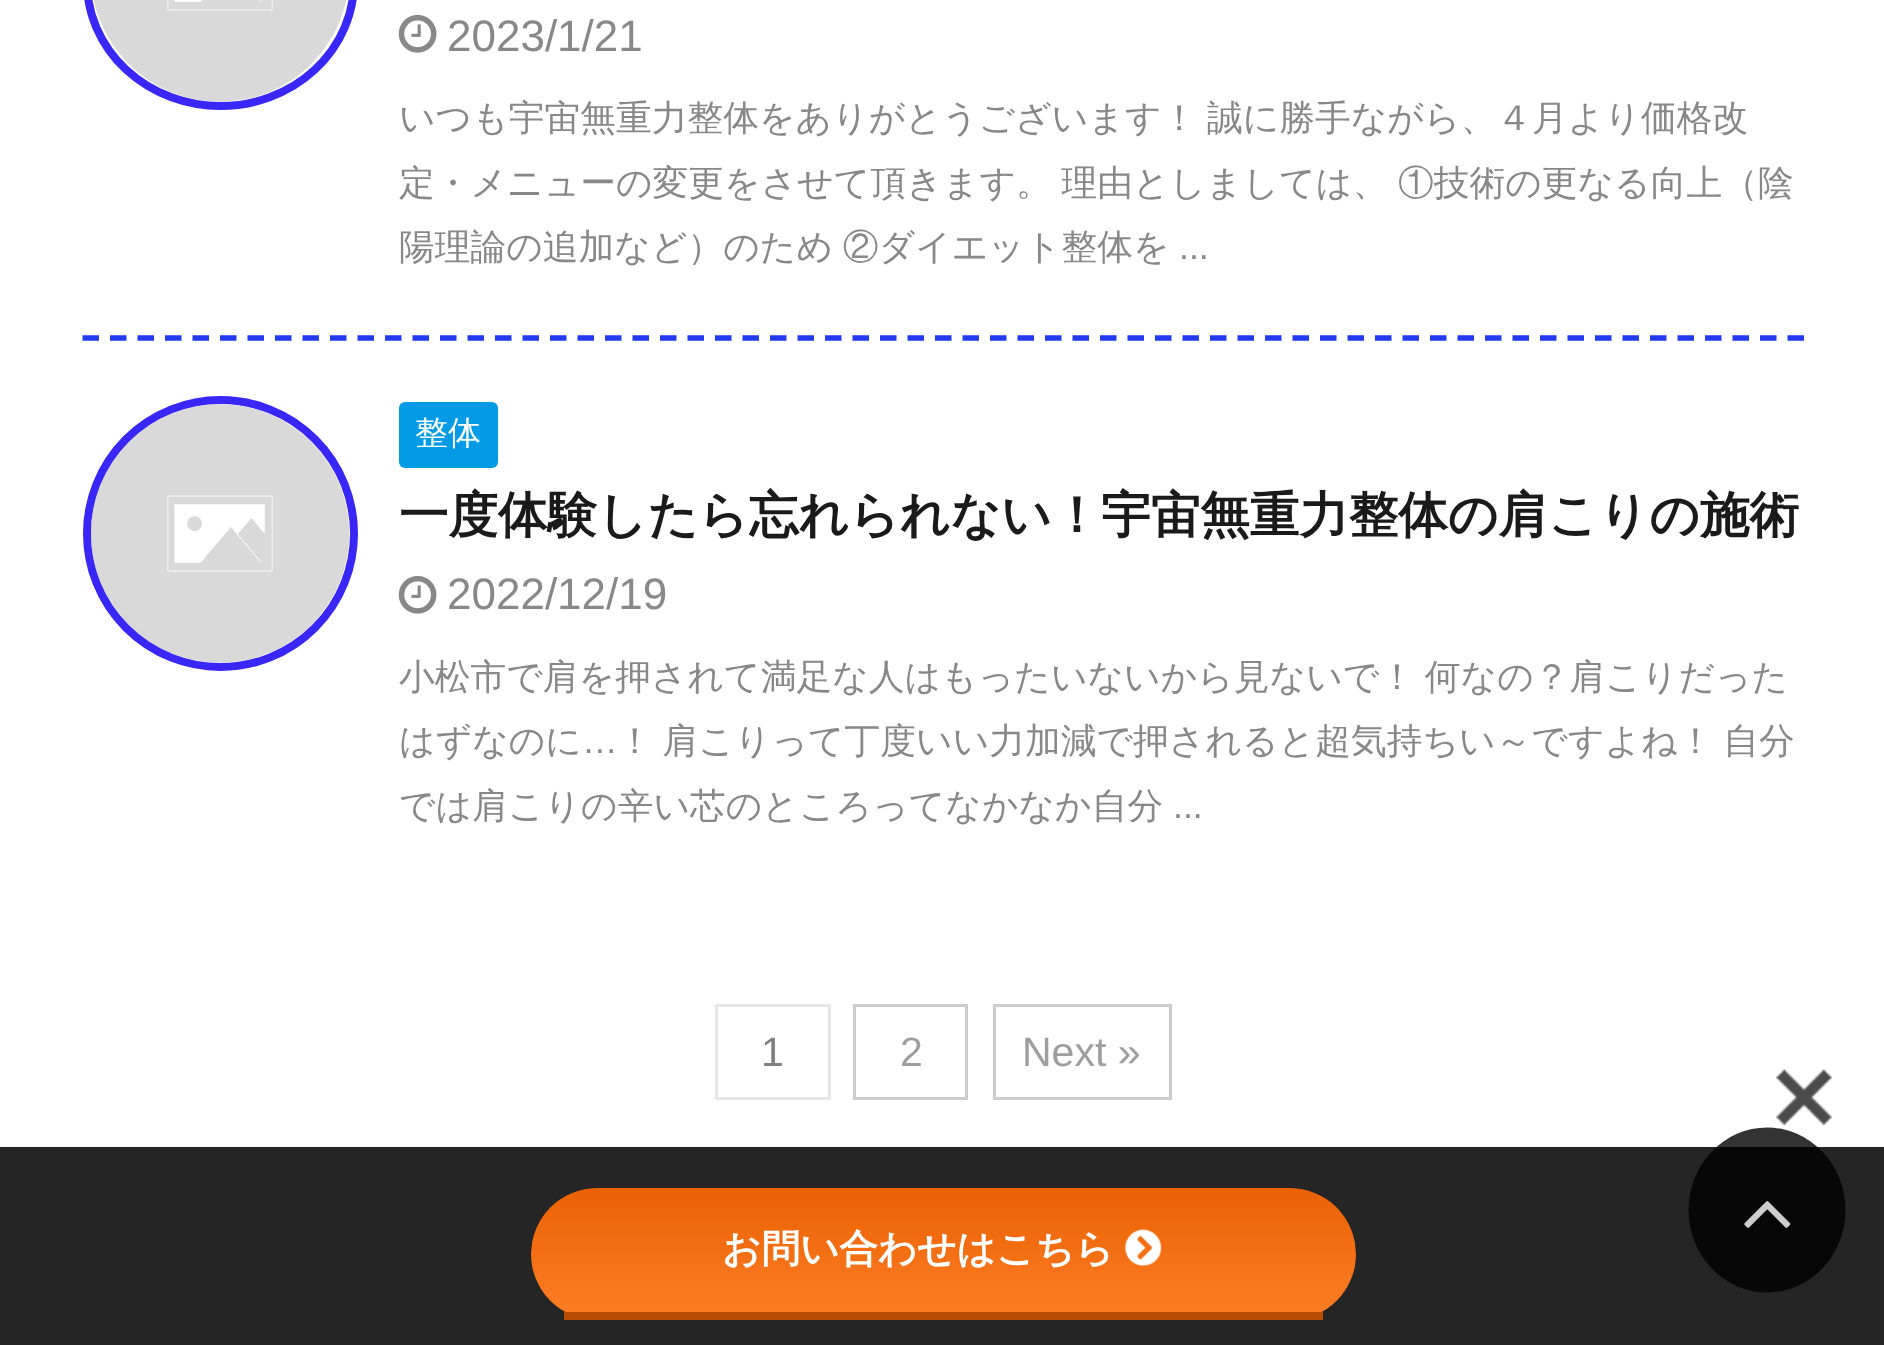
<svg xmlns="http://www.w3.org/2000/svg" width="1884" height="1345">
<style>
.a{font:44px Liberation Sans;fill:#888}
.b{font:500 35.75px WenQuanYi Zen Hei;fill:#888}
.c{font:35.75px Liberation Sans;fill:#888}
.d{font:500 33px WenQuanYi Zen Hei;fill:#fff}
.e{font:bold 49.5px WenQuanYi Zen Hei;fill:#1a1a1a}
.f{font:41px Liberation Sans;fill:#808080}
.g{font:41px Liberation Sans;fill:#9e9e9e}
.h{font:bold 38.5px WenQuanYi Zen Hei;fill:#fff}
</style>
<defs>
<clipPath id="clip1"><rect x="531" y="1188" width="825" height="132" rx="66"/></clipPath>
<linearGradient id="g1" gradientUnits="userSpaceOnUse" x1="943" y1="1188" x2="943" y2="1312"><stop offset="0" stop-color="#ea6103"/><stop offset="1" stop-color="#fc7c24"/></linearGradient>
</defs>
<rect width="100%" height="100%" fill="#252525"/>
<path fill="#fff" d="M0 0h1884v1147H0z"/>
<path fill="none" stroke="#233bef" stroke-width="5.5" stroke-dasharray="16.5 11" d="M82.5 338h1721.5"/>
<rect fill="none" stroke="#3827f7" stroke-width="8" x="87" y="-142" width="267" height="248" rx="133.5"/>
<image href="1.png" x="93" y="0" width="253" height="102"/>
<image href="2.png" x="398" y="14" width="39" height="39"/>
<circle fill="none" stroke="#3827f7" stroke-width="8" cx="220.5" cy="533.5" r="133.5"/>
<image href="3.png" x="90" y="404" width="259" height="259"/>
<rect fill="#039be5" x="399" y="402" width="99" height="66" rx="6"/>
<image href="2.png" x="398" y="575" width="39" height="39"/>
<path fill="none" stroke="#e6e6e6" stroke-width="3" d="M716.5 1005.5h113v93H716.5z"/>
<path fill="none" stroke="#ccc" stroke-width="3" d="M854.5 1005.5h112v93H854.5z"/>
<path fill="none" stroke="#ccc" stroke-width="3" d="M994.5 1005.5h176v93H994.5z"/>
<image href="4.png" x="1776" y="1069" width="56" height="57"/>
<g clip-path="url(#clip1)">
<path fill="url(#g1)" d="M597 1188h693c36.5 0 66 29.5 66 66v58h-825v-58c0-36.5 29.5-66 66-66z"/>
</g>
<path fill="#b84c02" d="M564 1312h759v8H564z"/>
<image href="5.png" x="1124" y="1229" width="38" height="38"/>
<ellipse fill="#000000cc" cx="1767" cy="1210" rx="78.5" ry="82.5"/>
<image href="6.png" x="1744" y="1201" width="47" height="27"/>
<text class="a" x="447" y="51">2023/1/21</text>
<text class="b" x="399" y="130" word-spacing="-1">いつも宇宙無重力整体をありがとうございます！ 誠に勝手ながら、４月より価格改</text>
<text class="b" x="399" y="195" word-spacing="-1">定・メニューの変更をさせて頂きます。 理由としましては、 ①技術の更なる向上（陰</text>
<text class="b" x="399" y="259" word-spacing="-1">陽理論の追加など）のため ②ダイエット整体を</text>
<text class="c" x="1179" y="259">...</text>
<text class="d" x="415" y="444">整体</text>
<text class="e" x="399" y="532">一度体験したら忘れられない！宇宙無重力整体の肩こりの施術</text>
<text class="a" x="447" y="609">2022/12/19</text>
<text class="b" x="399" y="689" word-spacing="-1">小松市で肩を押されて満足な人はもったいないから見ないで！ 何なの？肩こりだった</text>
<text class="b" x="399" y="753">はずなのに</text>
<text class="c" x="582" y="753">…</text>
<text class="b" x="617" y="753" word-spacing="-1">！ 肩こりって丁度いい力加減で押されると超気持ちい～ですよね！ 自分</text>
<text class="b" x="399" y="818">では肩こりの辛い芯のところってなかなか自分</text>
<text class="c" x="1173" y="818">...</text>
<text class="f" x="761" y="1066">1</text>
<text class="g" x="900" y="1066">2</text>
<text class="g" x="1022" y="1066">Next »</text>
<text class="h" x="722" y="1262">お問い合わせはこちら</text>
</svg>
